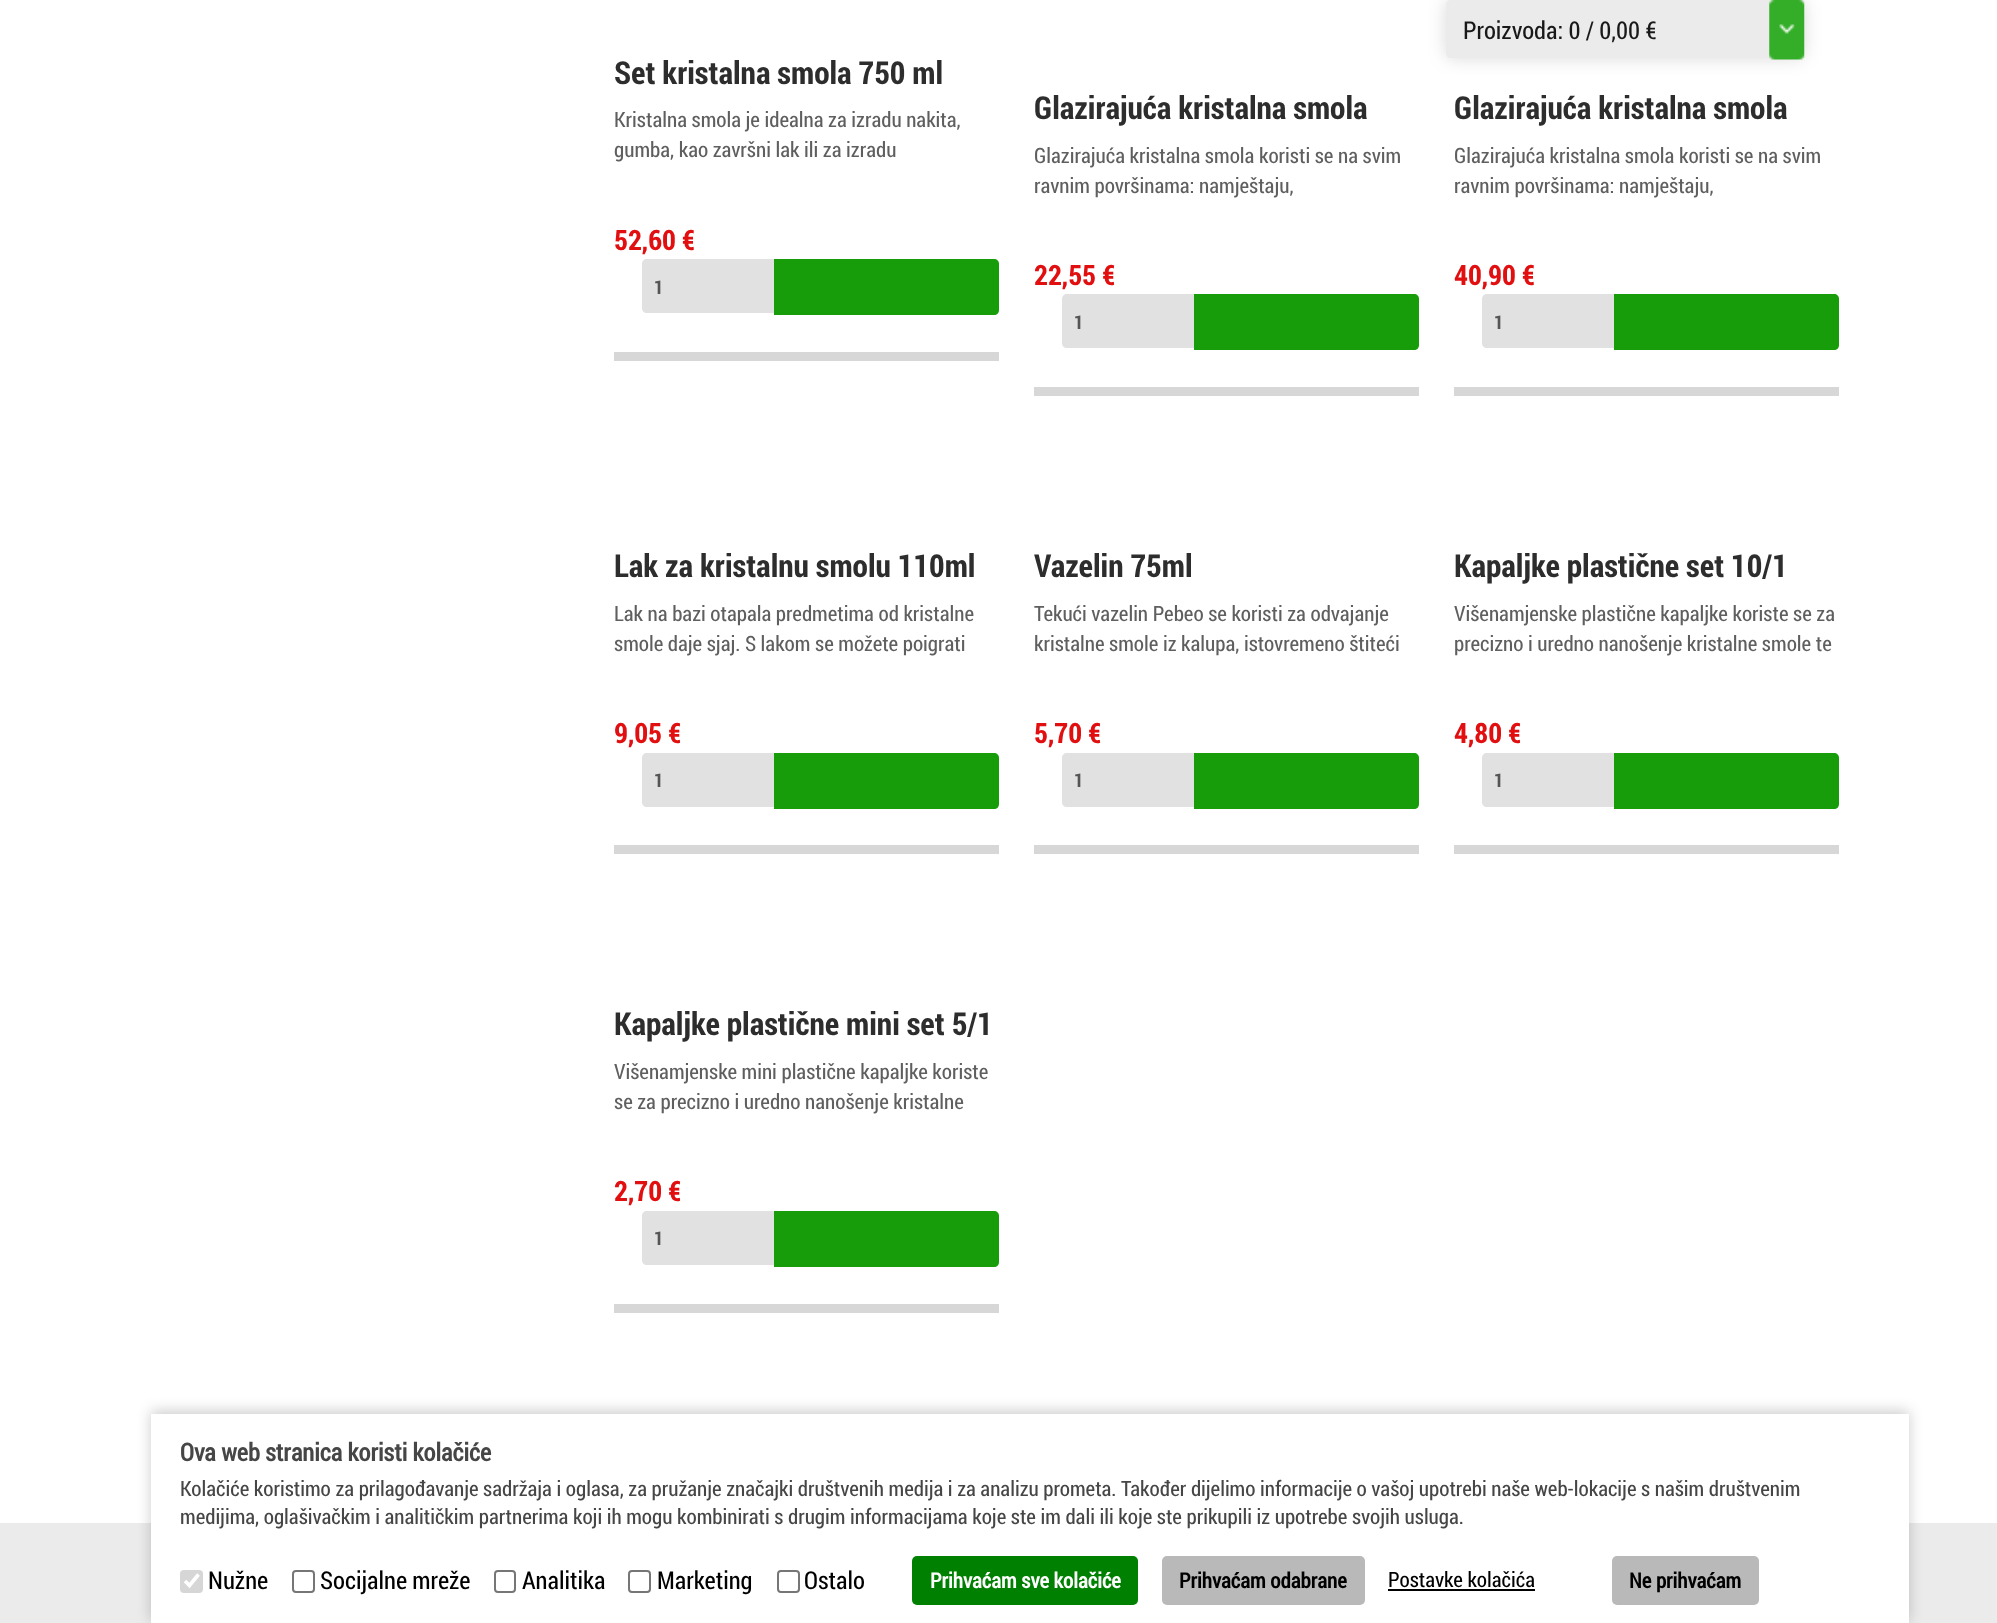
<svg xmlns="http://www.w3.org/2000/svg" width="1997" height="1623">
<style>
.a{font:24.5px Roboto Condensed;fill:#191919}
.b{font:bold 31.5px Roboto Condensed;fill:#2d2d2d}
.c{font:21px Roboto Condensed;fill:#5f5f5f}
.d{font:bold 28px Roboto Condensed;fill:#e10f0f}
.e{font:bold 19px Roboto Condensed;fill:#555}
.f{font:bold 24.5px 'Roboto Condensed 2';fill:#464646}
.g{font:21px Roboto Condensed;fill:#464646}
.h{font:24.5px Roboto Condensed;fill:#000}
.i{font:bold 21px 'Roboto Condensed 2';fill:#fff}
.j{font:bold 21px 'Roboto Condensed 2';fill:#000}
.k{font:21px Roboto Condensed;fill:#000}
</style>
<rect width="100%" height="100%" fill="#fff"/>
<rect fill="#00000026" filter="blur(9px)" x="1446" width="358" height="58" rx="5"/>
<path fill="#ebebeb" d="M1451 0h353v58h-353c-3 0-5-2-5-5v-48c0-3 2-5 5-5z"/>
<image href="1.png" x="1769" y="0" width="36" height="60"/>
<path fill="#d7d7d7" d="M614 352h385v9H614z"/>
<path fill="#e1e1e1" d="M647 259h127v54h-127c-3 0-5-2-5-5v-44c0-3 2-5 5-5z"/>
<path fill="#179d0a" d="M774 259h220c3 0 5 2 5 5v46c0 3-2 5-5 5h-220z"/>
<path fill="#d7d7d7" d="M1034 387h385v9H1034z"/>
<path fill="#e1e1e1" d="M1067 294h127v54h-127c-3 0-5-2-5-5v-44c0-3 2-5 5-5z"/>
<path fill="#179d0a" d="M1194 294h220c3 0 5 2 5 5v46c0 3-2 5-5 5h-220z"/>
<path fill="#d7d7d7" d="M1454 387h385v9H1454z"/>
<path fill="#e1e1e1" d="M1487 294h127v54h-127c-3 0-5-2-5-5v-44c0-3 2-5 5-5z"/>
<path fill="#179d0a" d="M1614 294h220c3 0 5 2 5 5v46c0 3-2 5-5 5h-220z"/>
<path fill="#d7d7d7" d="M614 845h385v9H614z"/>
<path fill="#e1e1e1" d="M647 753h127v54h-127c-3 0-5-2-5-5v-44c0-3 2-5 5-5z"/>
<path fill="#179d0a" d="M774 753h220c3 0 5 2 5 5v46c0 3-2 5-5 5h-220z"/>
<path fill="#d7d7d7" d="M1034 845h385v9H1034z"/>
<path fill="#e1e1e1" d="M1067 753h127v54h-127c-3 0-5-2-5-5v-44c0-3 2-5 5-5z"/>
<path fill="#179d0a" d="M1194 753h220c3 0 5 2 5 5v46c0 3-2 5-5 5h-220z"/>
<path fill="#d7d7d7" d="M1454 845h385v9H1454z"/>
<path fill="#e1e1e1" d="M1487 753h127v54h-127c-3 0-5-2-5-5v-44c0-3 2-5 5-5z"/>
<path fill="#179d0a" d="M1614 753h220c3 0 5 2 5 5v46c0 3-2 5-5 5h-220z"/>
<path fill="#d7d7d7" d="M614 1304h385v9H614z"/>
<path fill="#e1e1e1" d="M647 1211h127v54h-127c-3 0-5-2-5-5v-44c0-3 2-5 5-5z"/>
<path fill="#179d0a" d="M774 1211h220c3 0 5 2 5 5v46c0 3-2 5-5 5h-220z"/>
<path fill="#ebebeb" d="M0 1523h1997v100H0z"/>
<path fill="#00000033" filter="blur(7px)" d="M151 1411h1758v210H151z"/>
<path fill="#fff" d="M151 1414h1758v209H151z"/>
<rect fill="#d6d6d6" x="180" y="1570" width="23" height="23" rx="4"/>
<path fill="none" stroke="#fff" stroke-width="3.6" d="M185 1581l4.5 4.5l9-11"/>
<rect fill="none" stroke="#767676" stroke-width="2" x="293" y="1571" width="21" height="21" rx="3"/>
<rect fill="none" stroke="#767676" stroke-width="2" x="495" y="1571" width="20" height="21" rx="3"/>
<rect fill="none" stroke="#767676" stroke-width="2" x="629" y="1571" width="21" height="21" rx="3"/>
<rect fill="none" stroke="#767676" stroke-width="2" x="778" y="1571" width="21" height="21" rx="3"/>
<rect fill="#008000" x="912" y="1556" width="226" height="49" rx="5"/>
<rect fill="#b9b9b9" x="1162" y="1556" width="203" height="49" rx="5"/>
<path fill="#000" d="M1388 1589h147v2H1388z"/>
<rect fill="#b9b9b9" x="1612" y="1556" width="147" height="49" rx="5"/>
<text class="a" x="1463" y="39">Proizvoda: 0 / 0,00 €</text>
<text class="b" x="614" y="84">Set kristalna smola 750 ml</text>
<text class="c" x="614" y="127">Kristalna smola je idealna za izradu nakita,</text>
<text class="c" x="614" y="157">gumba, kao završni lak ili za izradu</text>
<text class="d" x="614" y="250">52,60 €</text>
<text class="e" x="654" y="294">1</text>
<text class="b" x="1034" y="119">Glazirajuća kristalna smola</text>
<text class="c" x="1034" y="163">Glazirajuća kristalna smola koristi se na svim</text>
<text class="c" x="1034" y="193">ravnim površinama: namještaju,</text>
<text class="d" x="1034" y="285">22,55 €</text>
<text class="e" x="1074" y="329">1</text>
<text class="b" x="1454" y="119">Glazirajuća kristalna smola</text>
<text class="c" x="1454" y="163">Glazirajuća kristalna smola koristi se na svim</text>
<text class="c" x="1454" y="193">ravnim površinama: namještaju,</text>
<text class="d" x="1454" y="285">40,90 €</text>
<text class="e" x="1494" y="329">1</text>
<text class="b" x="614" y="577">Lak za kristalnu smolu 110ml</text>
<text class="c" x="614" y="621">Lak na bazi otapala predmetima od kristalne</text>
<text class="c" x="614" y="651">smole daje sjaj. S lakom se možete poigrati</text>
<text class="d" x="614" y="743">9,05 €</text>
<text class="e" x="654" y="787">1</text>
<text class="b" x="1034" y="577">Vazelin 75ml</text>
<text class="c" x="1034" y="621">Tekući vazelin Pebeo se koristi za odvajanje</text>
<text class="c" x="1034" y="651">kristalne smole iz kalupa, istovremeno štiteći</text>
<text class="d" x="1034" y="743">5,70 €</text>
<text class="e" x="1074" y="787">1</text>
<text class="b" x="1454" y="577">Kapaljke plastične set 10/1</text>
<text class="c" x="1454" y="621">Višenamjenske plastične kapaljke koriste se za</text>
<text class="c" x="1454" y="651">precizno i uredno nanošenje kristalne smole te</text>
<text class="d" x="1454" y="743">4,80 €</text>
<text class="e" x="1494" y="787">1</text>
<text class="b" x="614" y="1035">Kapaljke plastične mini set 5/1</text>
<text class="c" x="614" y="1079">Višenamjenske mini plastične kapaljke koriste</text>
<text class="c" x="614" y="1109">se za precizno i uredno nanošenje kristalne</text>
<text class="d" x="614" y="1201">2,70 €</text>
<text class="e" x="654" y="1245">1</text>
<text class="f" x="180" y="1461">Ova web stranica koristi kolačiće</text>
<text class="g" x="180" y="1496">Kolačiće koristimo za prilagođavanje sadržaja i oglasa, za pružanje značajki društvenih medija i za analizu prometa. Također dijelimo informacije o vašoj upotrebi naše web-lokacije s našim društvenim</text>
<text class="g" x="180" y="1524">medijima, oglašivačkim i analitičkim partnerima koji ih mogu kombinirati s drugim informacijama koje ste im dali ili koje ste prikupili iz upotrebe svojih usluga.</text>
<text class="h" x="208" y="1589">Nužne</text>
<text class="h" x="320" y="1589">Socijalne mreže</text>
<text class="h" x="522" y="1589">Analitika</text>
<text class="h" x="657" y="1589">Marketing</text>
<text class="h" x="804" y="1589">Ostalo</text>
<text class="i" x="930" y="1588">Prihvaćam sve kolačiće</text>
<text class="j" x="1179" y="1588">Prihvaćam odabrane</text>
<text class="k" x="1388" y="1587">Postavke kolačića</text>
<text class="j" x="1629" y="1588">Ne prihvaćam</text>
</svg>
